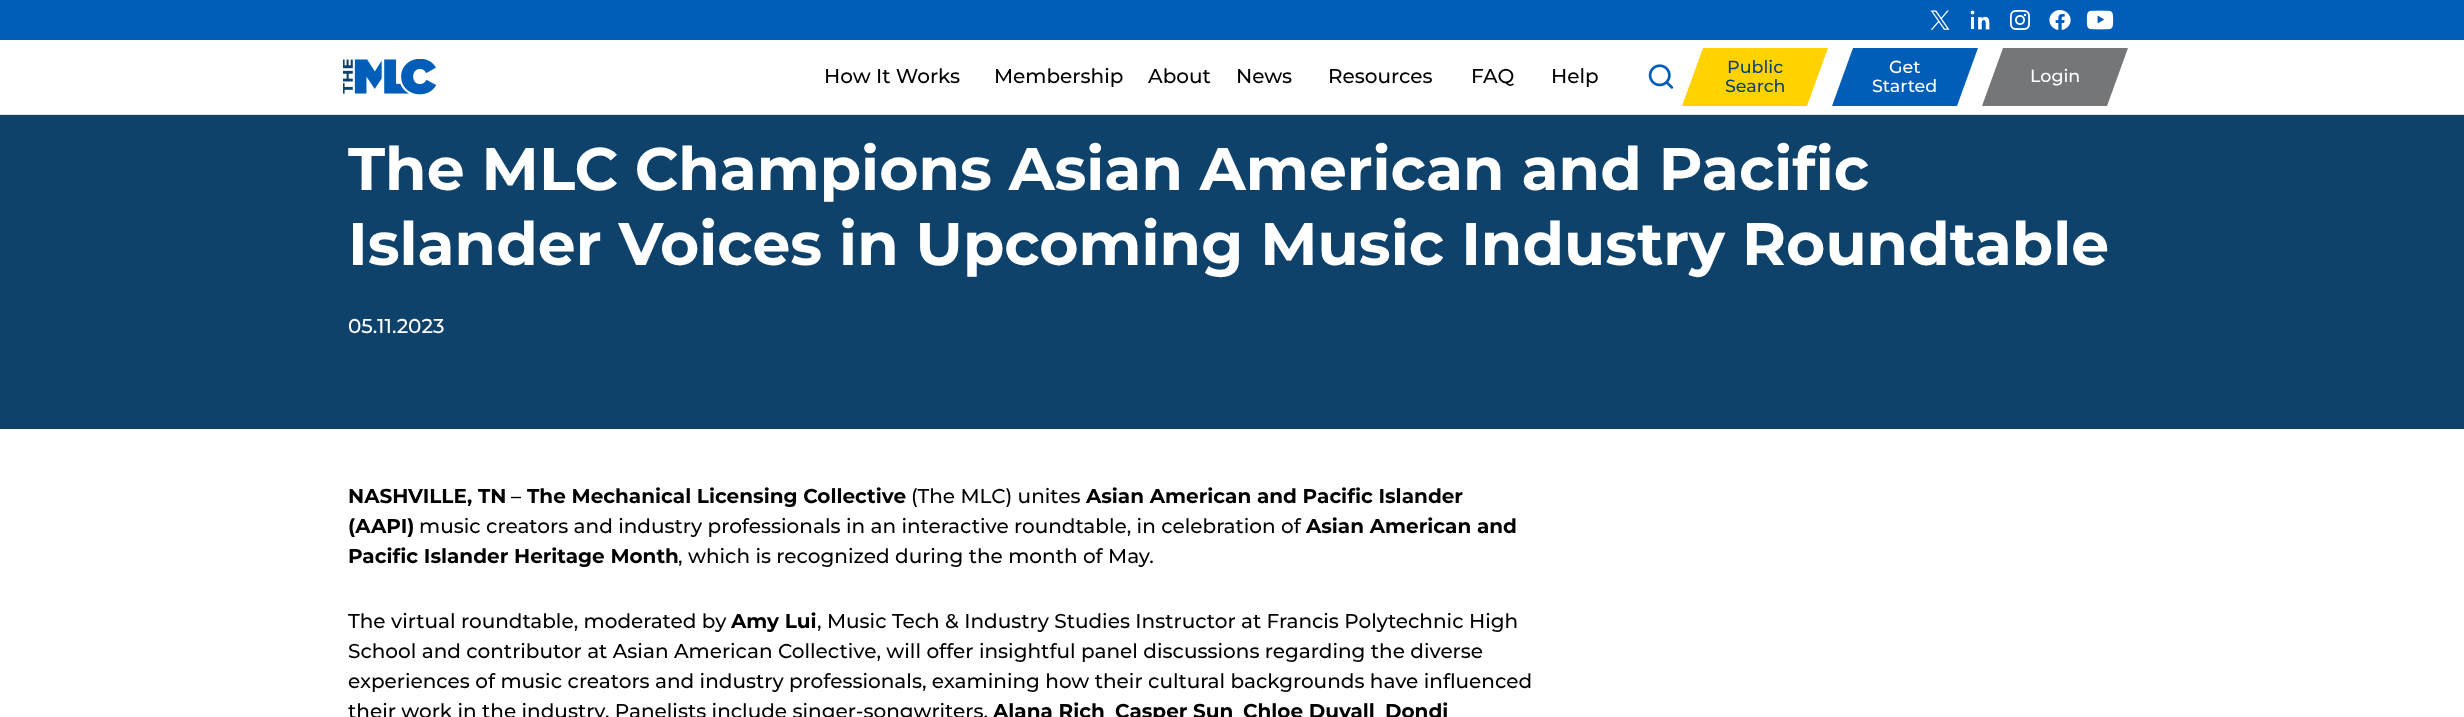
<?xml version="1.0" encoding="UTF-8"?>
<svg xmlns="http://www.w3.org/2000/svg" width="2464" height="717">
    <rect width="100%" height="100%" fill="#FFFFFF"/>
    <rect x="0" y="0" width="2464" height="40" fill="#005EB8"/>
    <image x="1930" y="10" width="20" height="20" href="img_01.png"/>
    <image x="1970" y="10" width="20" height="20" href="img_02.png"/>
    <image x="2010" y="10" width="20" height="20" href="img_03.png"/>
    <image x="2049" y="10" width="22" height="20" href="img_04.png"/>
    <image x="2086" y="10" width="28" height="20" href="img_05.png"/>
    <rect x="0" y="114" width="2464" height="1" fill="#E0E0E0"/>
    <image x="343" y="59" width="93" height="36" href="img_06.png"/>
    <text x="824" y="83" font-family="Montserrat" font-size="20" font-weight="500" fill="#000000">How It Works</text>
    <text x="994" y="83" font-family="Montserrat" font-size="20" font-weight="500" fill="#000000">Membership</text>
    <text x="1148" y="83" font-family="Montserrat" font-size="20" font-weight="500" fill="#000000">About</text>
    <text x="1236" y="83" font-family="Montserrat" font-size="20" font-weight="500" fill="#000000">News</text>
    <text x="1328" y="83" font-family="Montserrat" font-size="20" font-weight="500" fill="#000000">Resources</text>
    <text x="1471" y="83" font-family="Montserrat" font-size="20" font-weight="500" fill="#000000">FAQ</text>
    <text x="1551" y="83" font-family="Montserrat" font-size="20" font-weight="500" fill="#000000">Help</text>
    <image x="1648" y="64" width="26" height="25" href="img_07.png"/>
    <path d="M 1703 48 H 1828 L 1807 106 H 1682 Z" fill="#FFD200"/>
    <text x="1727" y="73" font-family="Montserrat" font-size="17.5" font-weight="500" fill="#0F426B">Public</text>
    <text x="1725" y="92" font-family="Montserrat" font-size="17.5" font-weight="500" fill="#0F426B">Search</text>
    <path d="M 1853 48 H 1978 L 1957 106 H 1832 Z" fill="#005EB8"/>
    <text x="1889" y="73" font-family="Montserrat" font-size="17.5" font-weight="500" fill="#FFFFFF">Get</text>
    <text x="1872" y="92" font-family="Montserrat" font-size="17.5" font-weight="500" fill="#FFFFFF">Started</text>
    <path d="M 2003 48 H 2128 L 2107 106 H 1982 Z" fill="#747678"/>
    <text x="2030" y="82" font-family="Montserrat" font-size="17.5" font-weight="500" fill="#FFFFFF">Login</text>
    <rect x="0" y="115" width="2464" height="314" fill="#0F426B"/>
    <text font-family="Montserrat" font-size="60" font-weight="700" fill="#FFFFFF">
        <tspan x="348" y="190">The MLC Champions Asian American and Pacific</tspan>
        <tspan x="348" y="265">Islander Voices in Upcoming Music Industry Roundtable</tspan>
    </text>
    <text x="348" y="333" font-family="Montserrat" font-size="20" font-weight="500" fill="#FFFFFF">05.11.2023</text>
    <text x="348" y="503" font-family="Montserrat" font-size="20" font-weight="700" fill="#000000">NASHVILLE, TN</text>
    <text x="511" y="503" font-family="Montserrat" font-size="20" font-weight="500" fill="#000000">–</text>
    <text x="527" y="503" font-family="Montserrat" font-size="20" font-weight="700" fill="#000000">The Mechanical Licensing Collective</text>
    <text x="911" y="503" font-family="Montserrat" font-size="20" font-weight="500" fill="#000000">(The MLC) unites</text>
    <text x="1086" y="503" font-family="Montserrat" font-size="20" font-weight="700" fill="#000000">Asian American and Pacific Islander</text>
    <text x="348" y="533" font-family="Montserrat" font-size="20" font-weight="700" fill="#000000">(AAPI)</text>
    <text x="419" y="533" font-family="Montserrat" font-size="20" font-weight="500" fill="#000000">music creators and industry professionals in an interactive roundtable, in celebration of</text>
    <text x="1306" y="533" font-family="Montserrat" font-size="20" font-weight="700" fill="#000000">Asian American and</text>
    <text x="348" y="563" font-family="Montserrat" font-size="20" font-weight="700" fill="#000000">Pacific Islander Heritage Month</text>
    <text x="678" y="563" font-family="Montserrat" font-size="20" font-weight="500" fill="#000000">, which is recognized during the month of May.</text>
    <text x="348" y="628" font-family="Montserrat" font-size="20" font-weight="500" fill="#000000">The virtual roundtable, moderated by</text>
    <text x="731" y="628" font-family="Montserrat" font-size="20" font-weight="700" fill="#000000">Amy Lui</text>
    <text x="817" y="628" font-family="Montserrat" font-size="20" font-weight="500" fill="#000000">, Music Tech &amp; Industry Studies Instructor at Francis Polytechnic High</text>
    <text font-family="Montserrat" font-size="20" font-weight="500" fill="#000000">
        <tspan x="348" y="658">School and contributor at Asian American Collective, will offer insightful panel discussions regarding the diverse</tspan>
        <tspan x="348" y="688">experiences of music creators and industry professionals, examining how their cultural backgrounds have influenced</tspan>
        <tspan x="348" y="718">their work in the industry. Panelists include singer-songwriters,</tspan>
    </text>
    <text x="993" y="718" font-family="Montserrat" font-size="20" font-weight="700" fill="#000000">Alana Rich</text>
    <text x="1115" y="718" font-family="Montserrat" font-size="20" font-weight="700" fill="#000000">Casper Sun</text>
    <text x="1243" y="718" font-family="Montserrat" font-size="20" font-weight="700" fill="#000000">Chloe Duvall</text>
    <text x="1385" y="718" font-family="Montserrat" font-size="20" font-weight="700" fill="#000000">Dondi</text>
</svg>
